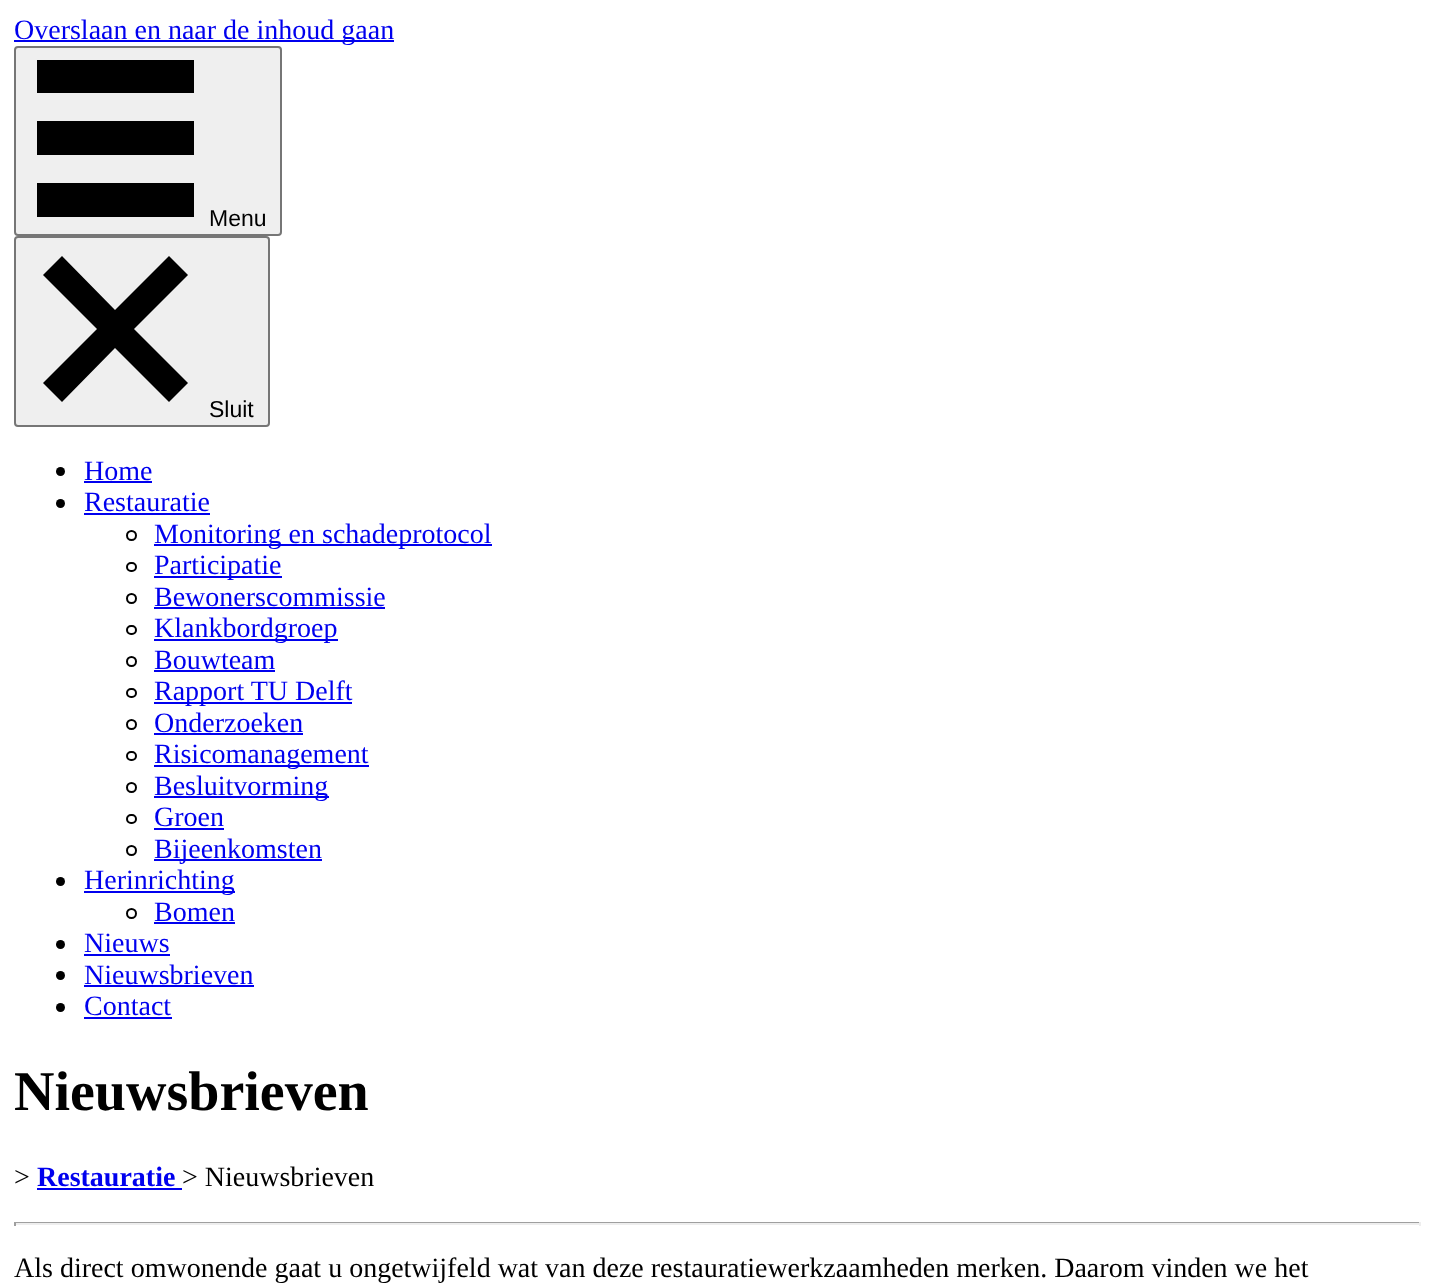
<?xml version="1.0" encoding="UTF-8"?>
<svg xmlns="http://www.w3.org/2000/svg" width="1435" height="1288">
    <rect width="100%" height="100%" fill="#FFFFFF"/>
    <rect x="14" y="40" width="380" height="2" fill="#0000EE"/>
    <text x="14" y="39" font-family="Liberation Serif" font-size="28" fill="#0000EE">Overslaan en naar de inhoud gaan</text>
    <rect x="15" y="47" width="266" height="188" rx="3" fill="#EFEFEF" stroke="#767676" stroke-width="2"/>
    <rect x="37" y="60" width="157" height="33" fill="#000000"/>
    <rect x="37" y="121" width="157" height="34" fill="#000000"/>
    <rect x="37" y="183" width="157" height="34" fill="#000000"/>
    <text x="209" y="226" font-family="Liberation Sans" font-size="23" fill="#000000">Menu</text>
    <rect x="15" y="237" width="254" height="189" rx="3" fill="#EFEFEF" stroke="#767676" stroke-width="2"/>
    <path d="M 188 275 L 169 256 L 115 310 L 62 256 L 43 275 L 97 329 L 43 383 L 62 402 L 115 348 L 169 402 L 188 383 L 134 329 Z" fill="#000000"/>
    <text x="209" y="417" font-family="Liberation Sans" font-size="23" fill="#000000">Sluit</text>
    <circle cx="60.5" cy="471.5" r="4.5" fill="#000000"/>
    <text x="84" y="480" font-family="Liberation Serif" font-size="28" fill="#0000EE">Home</text>
    <rect x="84" y="481" width="68" height="2" fill="#0000EE"/>
    <circle cx="60.5" cy="503.5" r="4.5" fill="#000000"/>
    <text x="84" y="511" font-family="Liberation Serif" font-size="28" fill="#0000EE">Restauratie</text>
    <rect x="84" y="513" width="126" height="2" fill="#0000EE"/>
    <circle cx="131.5" cy="535.5" r="4.5" fill="none" stroke="#000000" stroke-width="2"/>
    <rect x="154" y="544" width="338" height="2" fill="#0000EE"/>
    <text x="154" y="543" font-family="Liberation Serif" font-size="28" fill="#0000EE">Monitoring en schadeprotocol</text>
    <rect x="127" y="563" width="9" height="8" rx="4" fill="none" stroke="#000000" stroke-width="2"/>
    <rect x="154" y="576" width="128" height="2" fill="#0000EE"/>
    <text x="154" y="574" font-family="Liberation Serif" font-size="28" fill="#0000EE">Participatie</text>
    <circle cx="131.5" cy="598.5" r="4.5" fill="none" stroke="#000000" stroke-width="2"/>
    <text x="154" y="606" font-family="Liberation Serif" font-size="28" fill="#0000EE">Bewonerscommissie</text>
    <rect x="154" y="607" width="231" height="2" fill="#0000EE"/>
    <rect x="127" y="626" width="9" height="8" rx="4" fill="none" stroke="#000000" stroke-width="2"/>
    <rect x="154" y="639" width="184" height="2" fill="#0000EE"/>
    <text x="154" y="637" font-family="Liberation Serif" font-size="28" fill="#0000EE">Klankbordgroep</text>
    <circle cx="131.5" cy="661.5" r="4.5" fill="none" stroke="#000000" stroke-width="2"/>
    <text x="154" y="669" font-family="Liberation Serif" font-size="28" fill="#0000EE">Bouwteam</text>
    <rect x="154" y="670" width="121" height="2" fill="#0000EE"/>
    <rect x="127" y="689" width="9" height="8" rx="4" fill="none" stroke="#000000" stroke-width="2"/>
    <rect x="154" y="702" width="198" height="2" fill="#0000EE"/>
    <text x="154" y="700" font-family="Liberation Serif" font-size="28" fill="#0000EE">Rapport TU Delft</text>
    <circle cx="131.5" cy="724.5" r="4.5" fill="none" stroke="#000000" stroke-width="2"/>
    <text x="154" y="732" font-family="Liberation Serif" font-size="28" fill="#0000EE">Onderzoeken</text>
    <rect x="154" y="733" width="149" height="2" fill="#0000EE"/>
    <rect x="127" y="752" width="9" height="8" rx="4" fill="none" stroke="#000000" stroke-width="2"/>
    <rect x="154" y="765" width="215" height="2" fill="#0000EE"/>
    <text x="154" y="763" font-family="Liberation Serif" font-size="28" fill="#0000EE">Risicomanagement</text>
    <circle cx="131.5" cy="787.5" r="4.5" fill="none" stroke="#000000" stroke-width="2"/>
    <rect x="154" y="796" width="175" height="2" fill="#0000EE"/>
    <text x="154" y="795" font-family="Liberation Serif" font-size="28" fill="#0000EE">Besluitvorming</text>
    <rect x="127" y="815" width="9" height="8" rx="4" fill="none" stroke="#000000" stroke-width="2"/>
    <text x="154" y="826" font-family="Liberation Serif" font-size="28" fill="#0000EE">Groen</text>
    <rect x="154" y="828" width="70" height="2" fill="#0000EE"/>
    <circle cx="131.5" cy="850.5" r="4.5" fill="none" stroke="#000000" stroke-width="2"/>
    <rect x="154" y="859" width="168" height="2" fill="#0000EE"/>
    <text x="154" y="858" font-family="Liberation Serif" font-size="28" fill="#0000EE">Bijeenkomsten</text>
    <circle cx="60.5" cy="881.5" r="4.5" fill="#000000"/>
    <rect x="84" y="891" width="151" height="2" fill="#0000EE"/>
    <text x="84" y="889" font-family="Liberation Serif" font-size="28" fill="#0000EE">Herinrichting</text>
    <circle cx="131.5" cy="913.5" r="4.5" fill="none" stroke="#000000" stroke-width="2"/>
    <text x="154" y="921" font-family="Liberation Serif" font-size="28" fill="#0000EE">Bomen</text>
    <rect x="154" y="922" width="81" height="2" fill="#0000EE"/>
    <circle cx="60.5" cy="944.5" r="4.5" fill="#000000"/>
    <text x="84" y="952" font-family="Liberation Serif" font-size="28" fill="#0000EE">Nieuws</text>
    <rect x="84" y="954" width="86" height="2" fill="#0000EE"/>
    <circle cx="60.5" cy="975.5" r="4.5" fill="#000000"/>
    <text x="84" y="984" font-family="Liberation Serif" font-size="28" fill="#0000EE">Nieuwsbrieven</text>
    <rect x="84" y="985" width="170" height="2" fill="#0000EE"/>
    <circle cx="60.5" cy="1007.5" r="4.5" fill="#000000"/>
    <text x="84" y="1015" font-family="Liberation Serif" font-size="28" fill="#0000EE">Contact</text>
    <rect x="84" y="1017" width="88" height="2" fill="#0000EE"/>
    <text x="14" y="1110" font-family="Liberation Serif" font-size="56" font-weight="700" fill="#000000">Nieuwsbrieven</text>
    <text x="14" y="1186" font-family="Liberation Serif" font-size="28" fill="#000000">&gt;</text>
    <text x="37" y="1186" font-family="Liberation Serif" font-size="28" font-weight="700" fill="#0000EE">Restauratie</text>
    <rect x="37" y="1188" width="145" height="2" fill="#0000EE"/>
    <text x="182" y="1186" font-family="Liberation Serif" font-size="28" fill="#000000">&gt; Nieuwsbrieven</text>
    <rect x="14" y="1222" width="1407" height="1" fill="#9F9F9F"/>
    <rect x="1419" y="1222" width="2" height="4" fill="#EEEEEE"/>
    <rect x="14" y="1223" width="1407" height="2" fill="#EEEEEE"/>
    <rect x="14" y="1222" width="2" height="4" fill="#9F9F9F"/>
    <text x="14" y="1277" font-family="Liberation Serif" font-size="28" fill="#000000">Als direct omwonende gaat u ongetwijfeld wat van deze restauratiewerkzaamheden merken. Daarom vinden we het</text>
</svg>
